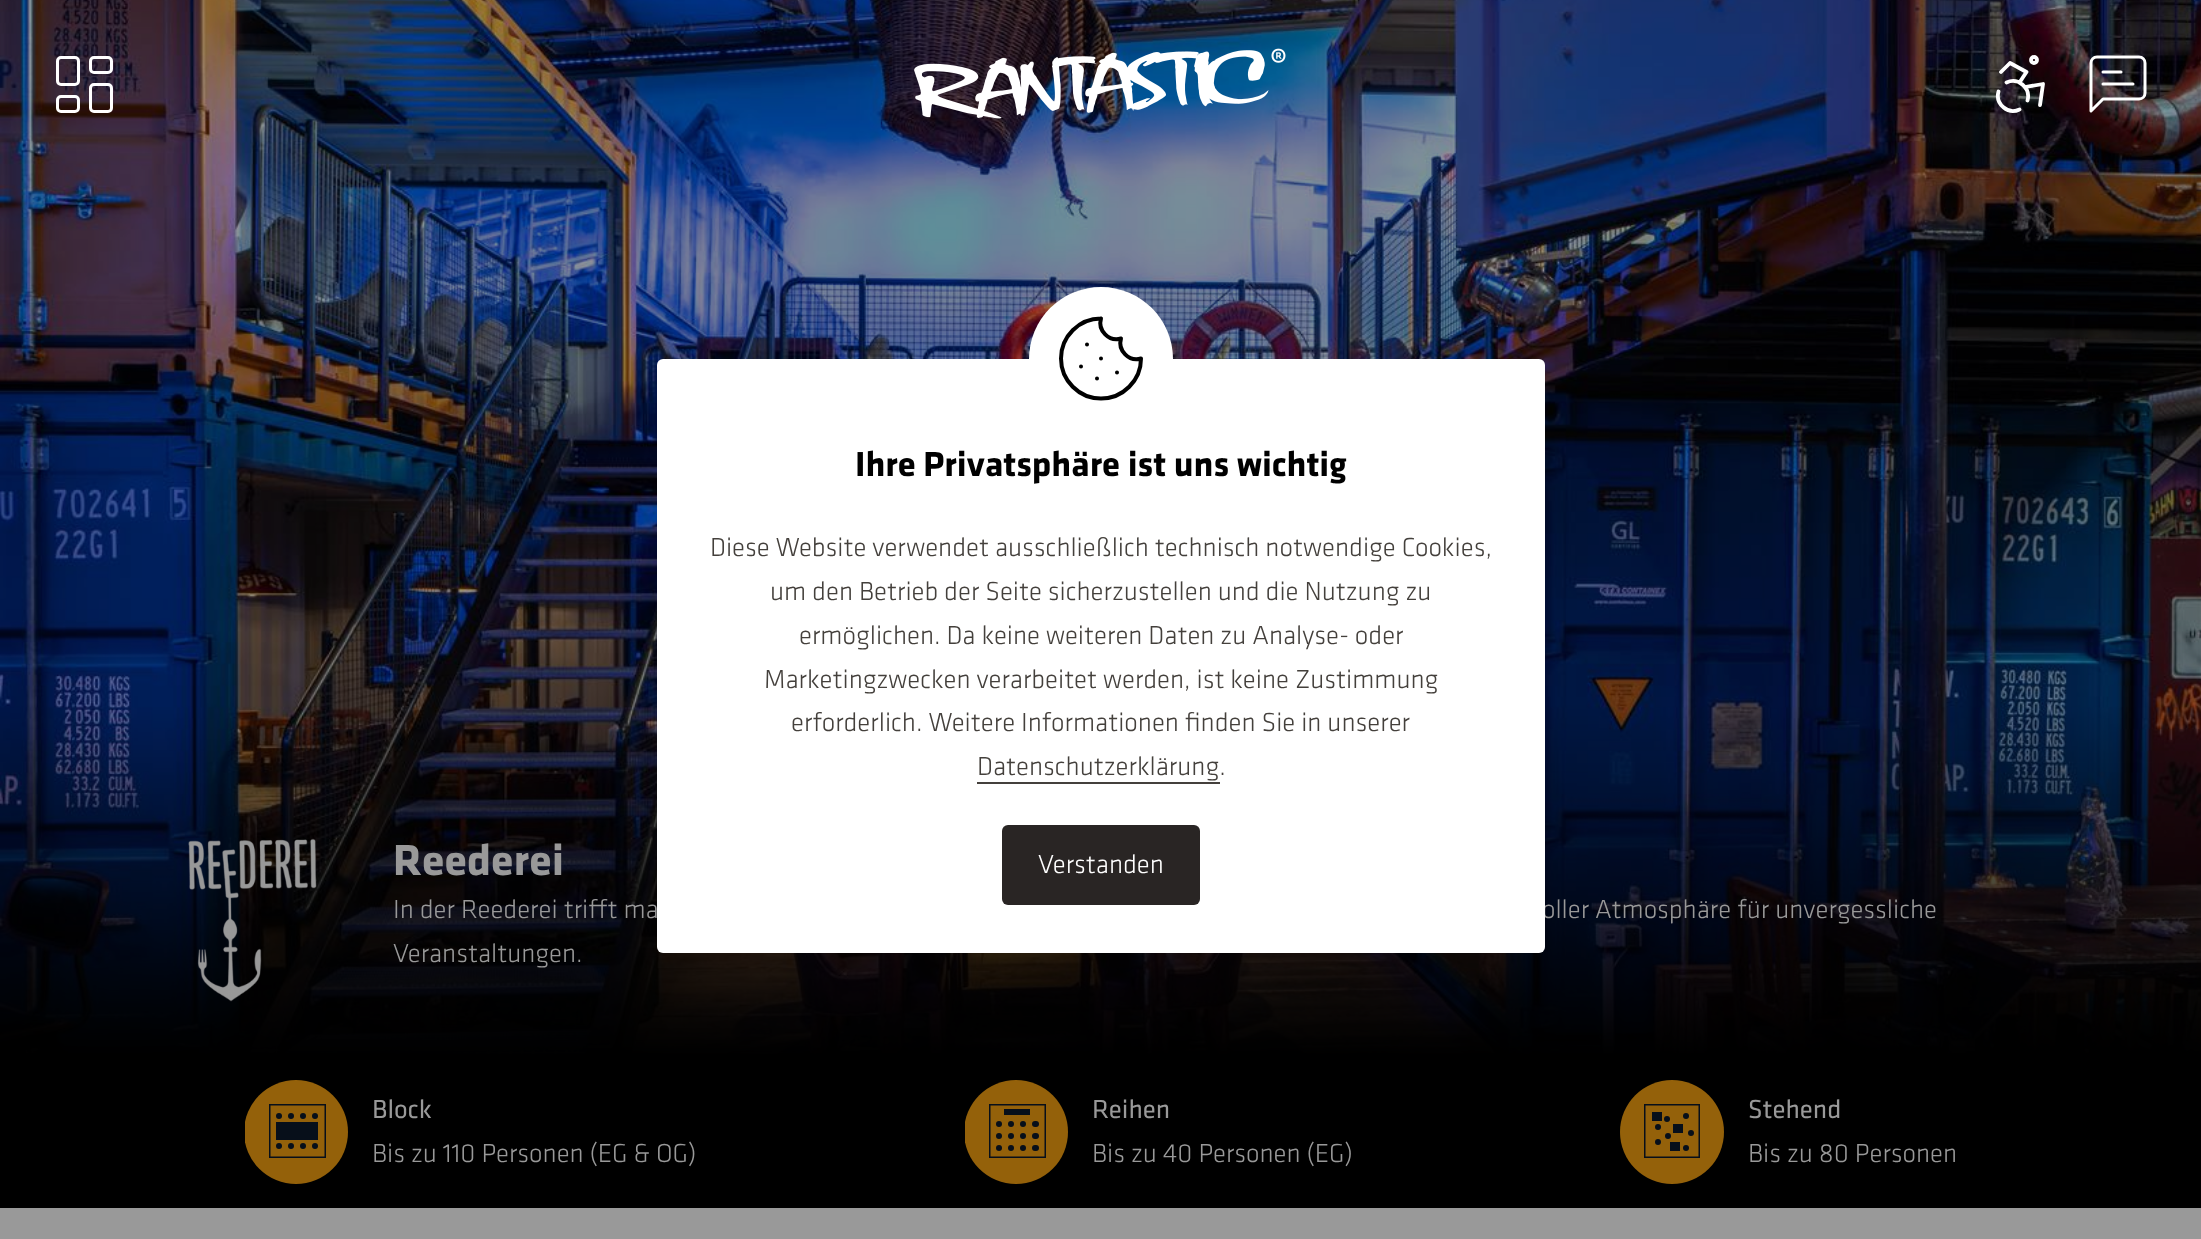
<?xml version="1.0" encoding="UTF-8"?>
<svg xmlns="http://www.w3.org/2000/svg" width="2201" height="1239">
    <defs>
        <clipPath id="clip1"><rect x="245" y="1080" width="103" height="104"/></clipPath>
        <clipPath id="clip2"><rect x="965" y="1080" width="103" height="104"/></clipPath>
    </defs>
    <rect width="100%" height="100%" fill="#999999"/>
    <image x="0" y="0" width="2201" height="1056" href="img_02.png"/>
    <rect x="57.5" y="57.5" width="21" height="27" rx="3.5" fill="none" stroke="#FFFFFF" stroke-width="3"/>
    <rect x="90.5" y="57.5" width="21" height="15" rx="3.5" fill="none" stroke="#FFFFFF" stroke-width="3"/>
    <rect x="90.5" y="84.5" width="21" height="27" rx="3.5" fill="none" stroke="#FFFFFF" stroke-width="3"/>
    <rect x="57.5" y="96.5" width="21" height="15" rx="3.5" fill="none" stroke="#FFFFFF" stroke-width="3"/>
    <image x="914" y="48" width="372" height="71" href="img_01.png"/>
    <circle cx="2034" cy="60" r="3" fill="none" stroke="#FFFFFF" stroke-width="3.8"/>
    <path d="M 2040 105 L 2043 84 L 2025 87 M 2001 72 L 2010 63 L 2026.5 72 L 2019.5 82.5 M 1998.5 91.5 C 1995 104 2008 115 2019.5 109.5 M 2027.5 100.5 C 2031 88 2018 77 2006.5 82.5" fill="none" stroke="#FFFFFF" stroke-width="3.8" stroke-linecap="round" stroke-linejoin="round"/>
    <path d="M 2145 93 C 2145 96.5 2142.5 99 2139 99 H 2103 L 2091 111 V 63 C 2091 59.5 2093.5 57 2097 57 H 2139 C 2142.5 57 2145 59.5 2145 63 Z M 2121 72 H 2103 M 2133 84 H 2103" fill="none" stroke="#FFFFFF" stroke-width="3" stroke-linecap="round" stroke-linejoin="round"/>
    <text x="1542" y="918" font-family="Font" font-size="27" font-weight="300" fill="#999999">oller Atmosphäre für unvergessliche</text>
    <rect x="657" y="359" width="888" height="594" rx="6" fill="#FFFFFF"/>
    <circle cx="1101" cy="359" r="72" fill="#FFFFFF"/>
    <path d="M 1101 318.5 C 1079 318.5 1061 336.5 1061 358.5 C 1061 380.5 1079 398.5 1101 398.5 C 1123 398.5 1141 380.5 1141 358.5 C 1129 362 1117.5 350.5 1121 338.5 C 1109 342 1097.5 330.5 1101 318.5" fill="none" stroke="#000000" stroke-width="4" stroke-linecap="round" stroke-linejoin="round"/>
    <path d="M 1087 344.5 H 1087 M 1117 372.5 H 1117 M 1101 358.5 H 1101 M 1097 378.5 H 1097 M 1081 366.5 H 1081" fill="none" stroke="#000000" stroke-width="4" stroke-linecap="round" stroke-linejoin="round"/>
    <text x="855" y="476" font-family="Font" font-size="36" font-weight="700" fill="#000000">Ihre Privatsphäre ist uns wichtig</text>
    <text x="710" y="556" font-family="Font" font-size="27" font-weight="300" fill="#44403C">Diese Website verwendet ausschließlich technisch notwendige Cookies,</text>
    <text x="770" y="600" font-family="Font" font-size="27" font-weight="300" fill="#44403C">um den Betrieb der Seite sicherzustellen und die Nutzung zu</text>
    <text x="799" y="644" font-family="Font" font-size="27" font-weight="300" fill="#44403C">ermöglichen. Da keine weiteren Daten zu Analyse- oder</text>
    <text x="764" y="688" font-family="Font" font-size="27" font-weight="300" fill="#44403C">Marketingzwecken verarbeitet werden, ist keine Zustimmung</text>
    <text x="791" y="731" font-family="Font" font-size="27" font-weight="300" fill="#44403C">erforderlich. Weitere Informationen finden Sie in unserer</text>
    <text x="977" y="775" font-family="Font" font-size="27" font-weight="300" fill="#44403C">Datenschutzerklärung.</text>
    <rect x="977" y="782" width="243" height="2" fill="#44403C"/>
    <rect x="1002" y="825" width="198" height="80" rx="6" fill="#292524"/>
    <text x="1038" y="873" font-family="Font" font-size="27" font-weight="300" fill="#FFFFFF">Verstanden</text>
    <image x="188" y="838" width="129" height="164" href="img_03.png"/>
    <text x="393" y="875" font-family="Font" font-size="45" font-weight="700" fill="#999999">Reederei</text>
    <text font-family="Font" font-size="27" font-weight="300" fill="#999999">
        <tspan x="393" y="918">In der Reederei trifft ma</tspan>
        <tspan x="393" y="962">Veranstaltungen.</tspan>
    </text>
    <rect x="0" y="1056" width="2201" height="152" fill="#000000"/>
    <g clip-path="url(#clip1)">
        <circle cx="296" cy="1132" r="52" fill="#94610A"/>
    </g>
    <rect x="269.75" y="1104.75" width="55.5" height="52.5" fill="none" stroke="#070F1A" stroke-width="1.5"/>
    <circle cx="279" cy="1116" r="3" fill="#070F1A"/>
    <circle cx="279" cy="1146" r="3" fill="#070F1A"/>
    <rect x="276" y="1122" width="42" height="18" fill="#070F1A"/>
    <circle cx="291" cy="1116" r="3" fill="#070F1A"/>
    <circle cx="291" cy="1146" r="3" fill="#070F1A"/>
    <circle cx="303" cy="1116" r="3" fill="#070F1A"/>
    <circle cx="303" cy="1146" r="3" fill="#070F1A"/>
    <circle cx="315" cy="1116" r="3" fill="#070F1A"/>
    <circle cx="315" cy="1146" r="3" fill="#070F1A"/>
    <text x="372" y="1118" font-family="Font" font-size="27" fill="#999999">Block</text>
    <text x="372" y="1162" font-family="Font" font-size="27" font-weight="300" fill="#999999">Bis zu 110 Personen (EG &amp; OG)</text>
    <g clip-path="url(#clip2)">
        <circle cx="1016" cy="1132" r="52" fill="#94610A"/>
    </g>
    <rect x="989.75" y="1104.75" width="55.5" height="52.5" fill="none" stroke="#070F1A" stroke-width="1.5"/>
    <rect x="1004" y="1109" width="26" height="6" fill="#070F1A"/>
    <circle cx="999" cy="1124" r="3" fill="#070F1A"/>
    <circle cx="999" cy="1136" r="3" fill="#070F1A"/>
    <circle cx="999" cy="1148" r="3" fill="#070F1A"/>
    <circle cx="1011" cy="1124" r="3" fill="#070F1A"/>
    <circle cx="1011" cy="1136" r="3" fill="#070F1A"/>
    <circle cx="1011" cy="1148" r="3" fill="#070F1A"/>
    <circle cx="1023" cy="1124" r="3" fill="#070F1A"/>
    <circle cx="1023" cy="1136" r="3" fill="#070F1A"/>
    <circle cx="1023" cy="1148" r="3" fill="#070F1A"/>
    <rect x="1032" y="1121" width="7" height="6" rx="3" fill="#070F1A"/>
    <rect x="1032" y="1133" width="7" height="6" rx="3" fill="#070F1A"/>
    <rect x="1032" y="1145" width="7" height="6" rx="3" fill="#070F1A"/>
    <text x="1092" y="1118" font-family="Font" font-size="27" fill="#999999">Reihen</text>
    <text x="1092" y="1162" font-family="Font" font-size="27" font-weight="300" fill="#999999">Bis zu 40 Personen (EG)</text>
    <circle cx="1672" cy="1132" r="52" fill="#94610A"/>
    <rect x="1644.75" y="1104.75" width="54.5" height="52.5" fill="none" stroke="#070F1A" stroke-width="1.5"/>
    <rect x="1652" y="1112" width="10" height="9" fill="#070F1A"/>
    <rect x="1673" y="1124" width="10" height="9" fill="#070F1A"/>
    <rect x="1670" y="1142" width="10" height="9" fill="#070F1A"/>
    <circle cx="1658" cy="1142" r="3" fill="#070F1A"/>
    <circle cx="1668" cy="1136" r="3" fill="#070F1A"/>
    <circle cx="1658" cy="1127" r="3" fill="#070F1A"/>
    <circle cx="1667" cy="1119" r="3" fill="#070F1A"/>
    <circle cx="1686" cy="1116" r="3" fill="#070F1A"/>
    <circle cx="1691" cy="1133" r="3" fill="#070F1A"/>
    <circle cx="1686" cy="1148" r="3" fill="#070F1A"/>
    <text x="1748" y="1118" font-family="Font" font-size="27" fill="#999999">Stehend</text>
    <text x="1748" y="1162" font-family="Font" font-size="27" font-weight="300" fill="#999999">Bis zu 80 Personen</text>
</svg>
